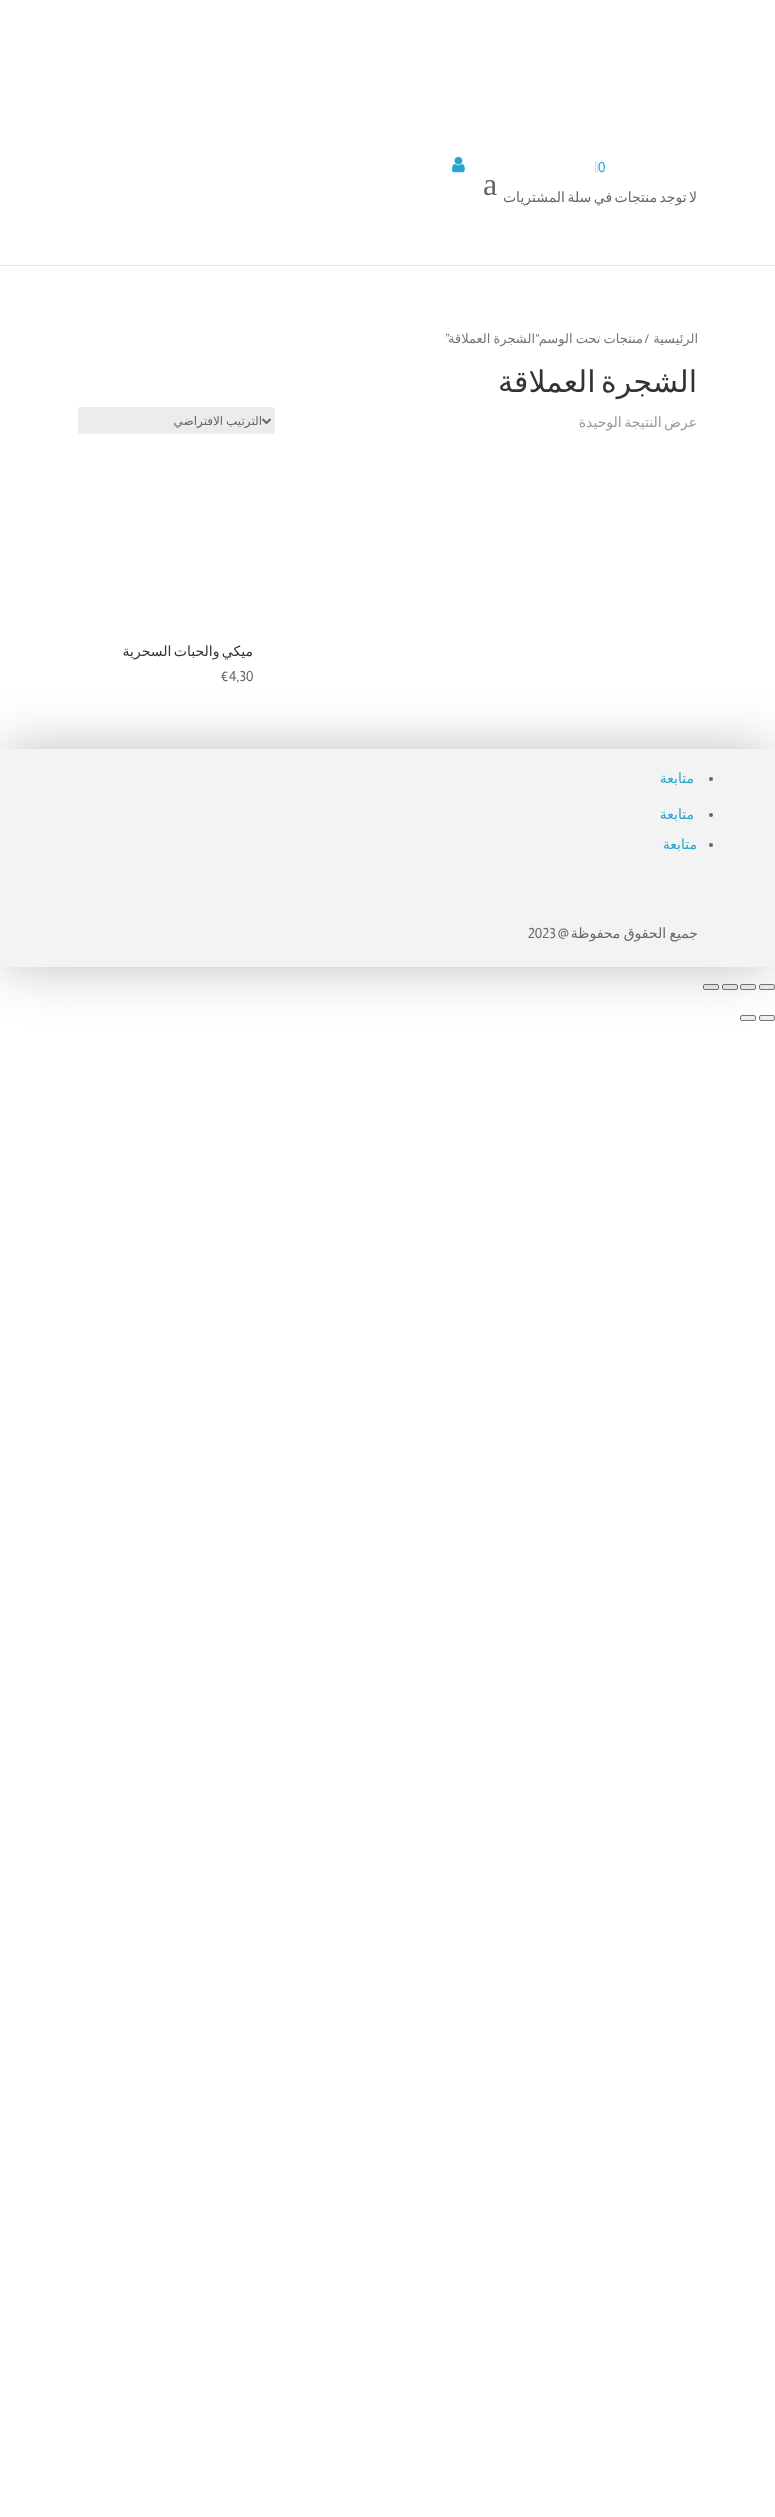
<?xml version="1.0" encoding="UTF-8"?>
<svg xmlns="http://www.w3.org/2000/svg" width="775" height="2517">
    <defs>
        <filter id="blur1" x="-50%" y="-200%" width="200%" height="500%"><feGaussianBlur stdDeviation="30"/></filter>
    </defs>
    <rect width="100%" height="100%" fill="#FFFFFF"/>
    <rect x="0" y="265" width="775" height="1" fill="#E5E5E5"/>
    <text x="598" y="172" font-family="Almarai" font-size="14" fill="#25A5D0">0</text>
    <image x="595" y="161" width="3" height="11" href="img_01.png"/>
    <text x="697" y="202" word-spacing="-2" font-family="DejaVu Sans" font-size="14" direction="rtl" fill="#666666">لا توجد منتجات في سلة المشتريات</text>
    <text x="483" y="195" font-family="Liberation Serif" font-size="32" fill="#666666">a</text>
    <image x="452" y="156" width="13" height="17" href="img_02.png"/>
    <text x="698" y="343" font-family="DejaVu Sans" font-size="13" direction="rtl" fill="#767676">الرئيسية</text>
    <text x="649" y="343" font-family="Almarai" font-size="13" direction="rtl" fill="#767676">/</text>
    <text x="643" y="343" word-spacing="-1" font-family="DejaVu Sans" font-size="13" direction="rtl" fill="#767676">منتجات تحت الوسم</text>
    <text x="540" y="343" font-family="Almarai" font-size="13" direction="rtl" fill="#767676">“</text>
    <text x="535" y="343" word-spacing="-1" font-family="DejaVu Sans" font-size="13" direction="rtl" fill="#767676">الشجرة العملاقة</text>
    <text x="450" y="343" font-family="Almarai" font-size="13" direction="rtl" fill="#767676">”</text>
    <text x="697" y="392" word-spacing="-4" font-family="DejaVu Sans" font-size="30" direction="rtl" fill="#333333">الشجرة العملاقة</text>
    <text x="697" y="427" word-spacing="-2" font-family="DejaVu Sans" font-size="14" direction="rtl" fill="#999999">عرض النتيجة الوحيدة</text>
    <rect x="78" y="407" width="197" height="27" rx="3" fill="#ECECEC"/>
    <path d="M 262.5 419 L 266.5 423 L 270.5 419" fill="none" stroke="#666666" stroke-width="2"/>
    <text x="262" y="425" word-spacing="-1" font-family="DejaVu Sans" font-size="12" direction="rtl" fill="#666666">الترتيب الافتراضي</text>
    <text x="253" y="656" word-spacing="-2" font-family="DejaVu Sans" font-size="14" direction="rtl" fill="#333333">ميكي والحبات السحرية</text>
    <text x="220" y="681" font-family="Almarai" font-size="14" fill="#666666">€4,30</text>
    <rect x="759.5" y="984.5" width="15" height="5" rx="1.5" fill="#EFEFEF" stroke="#767676"/>
    <rect x="740.5" y="984.5" width="15" height="5" rx="1.5" fill="#EFEFEF" stroke="#767676"/>
    <rect x="722.5" y="984.5" width="15" height="5" rx="1.5" fill="#EFEFEF" stroke="#767676"/>
    <rect x="703.5" y="984.5" width="15" height="5" rx="1.5" fill="#EFEFEF" stroke="#767676"/>
    <rect x="759.5" y="1015.5" width="15" height="5" rx="1.5" fill="#EFEFEF" stroke="#767676"/>
    <rect x="740.5" y="1015.5" width="15" height="5" rx="1.5" fill="#EFEFEF" stroke="#767676"/>
    <rect x="5" y="754" width="765" height="208" fill="#000000" fill-opacity="0.3" filter="url(#blur1)"/>
    <rect x="0" y="749" width="775" height="218" fill="#F3F3F3"/>
    <circle cx="711" cy="779" r="2" fill="#666666"/>
    <text x="694" y="783" font-family="DejaVu Sans" font-size="14" direction="rtl" fill="#25A5D0">متابعة</text>
    <circle cx="711" cy="815" r="2" fill="#666666"/>
    <text x="694" y="819" font-family="DejaVu Sans" font-size="14" direction="rtl" fill="#25A5D0">متابعة</text>
    <circle cx="711" cy="845" r="2" fill="#666666"/>
    <text x="697" y="849" font-family="DejaVu Sans" font-size="14" direction="rtl" fill="#25A5D0">متابعة</text>
    <text x="698" y="938" word-spacing="-1" font-family="DejaVu Sans" font-size="14" direction="rtl" fill="#666666">جميع الحقوق محفوظة</text>
    <text x="569" y="938" font-family="Almarai" font-size="14" direction="rtl" fill="#666666">@</text>
    <text x="528" y="938" font-family="Almarai" font-size="14" fill="#666666">2023</text>
</svg>
